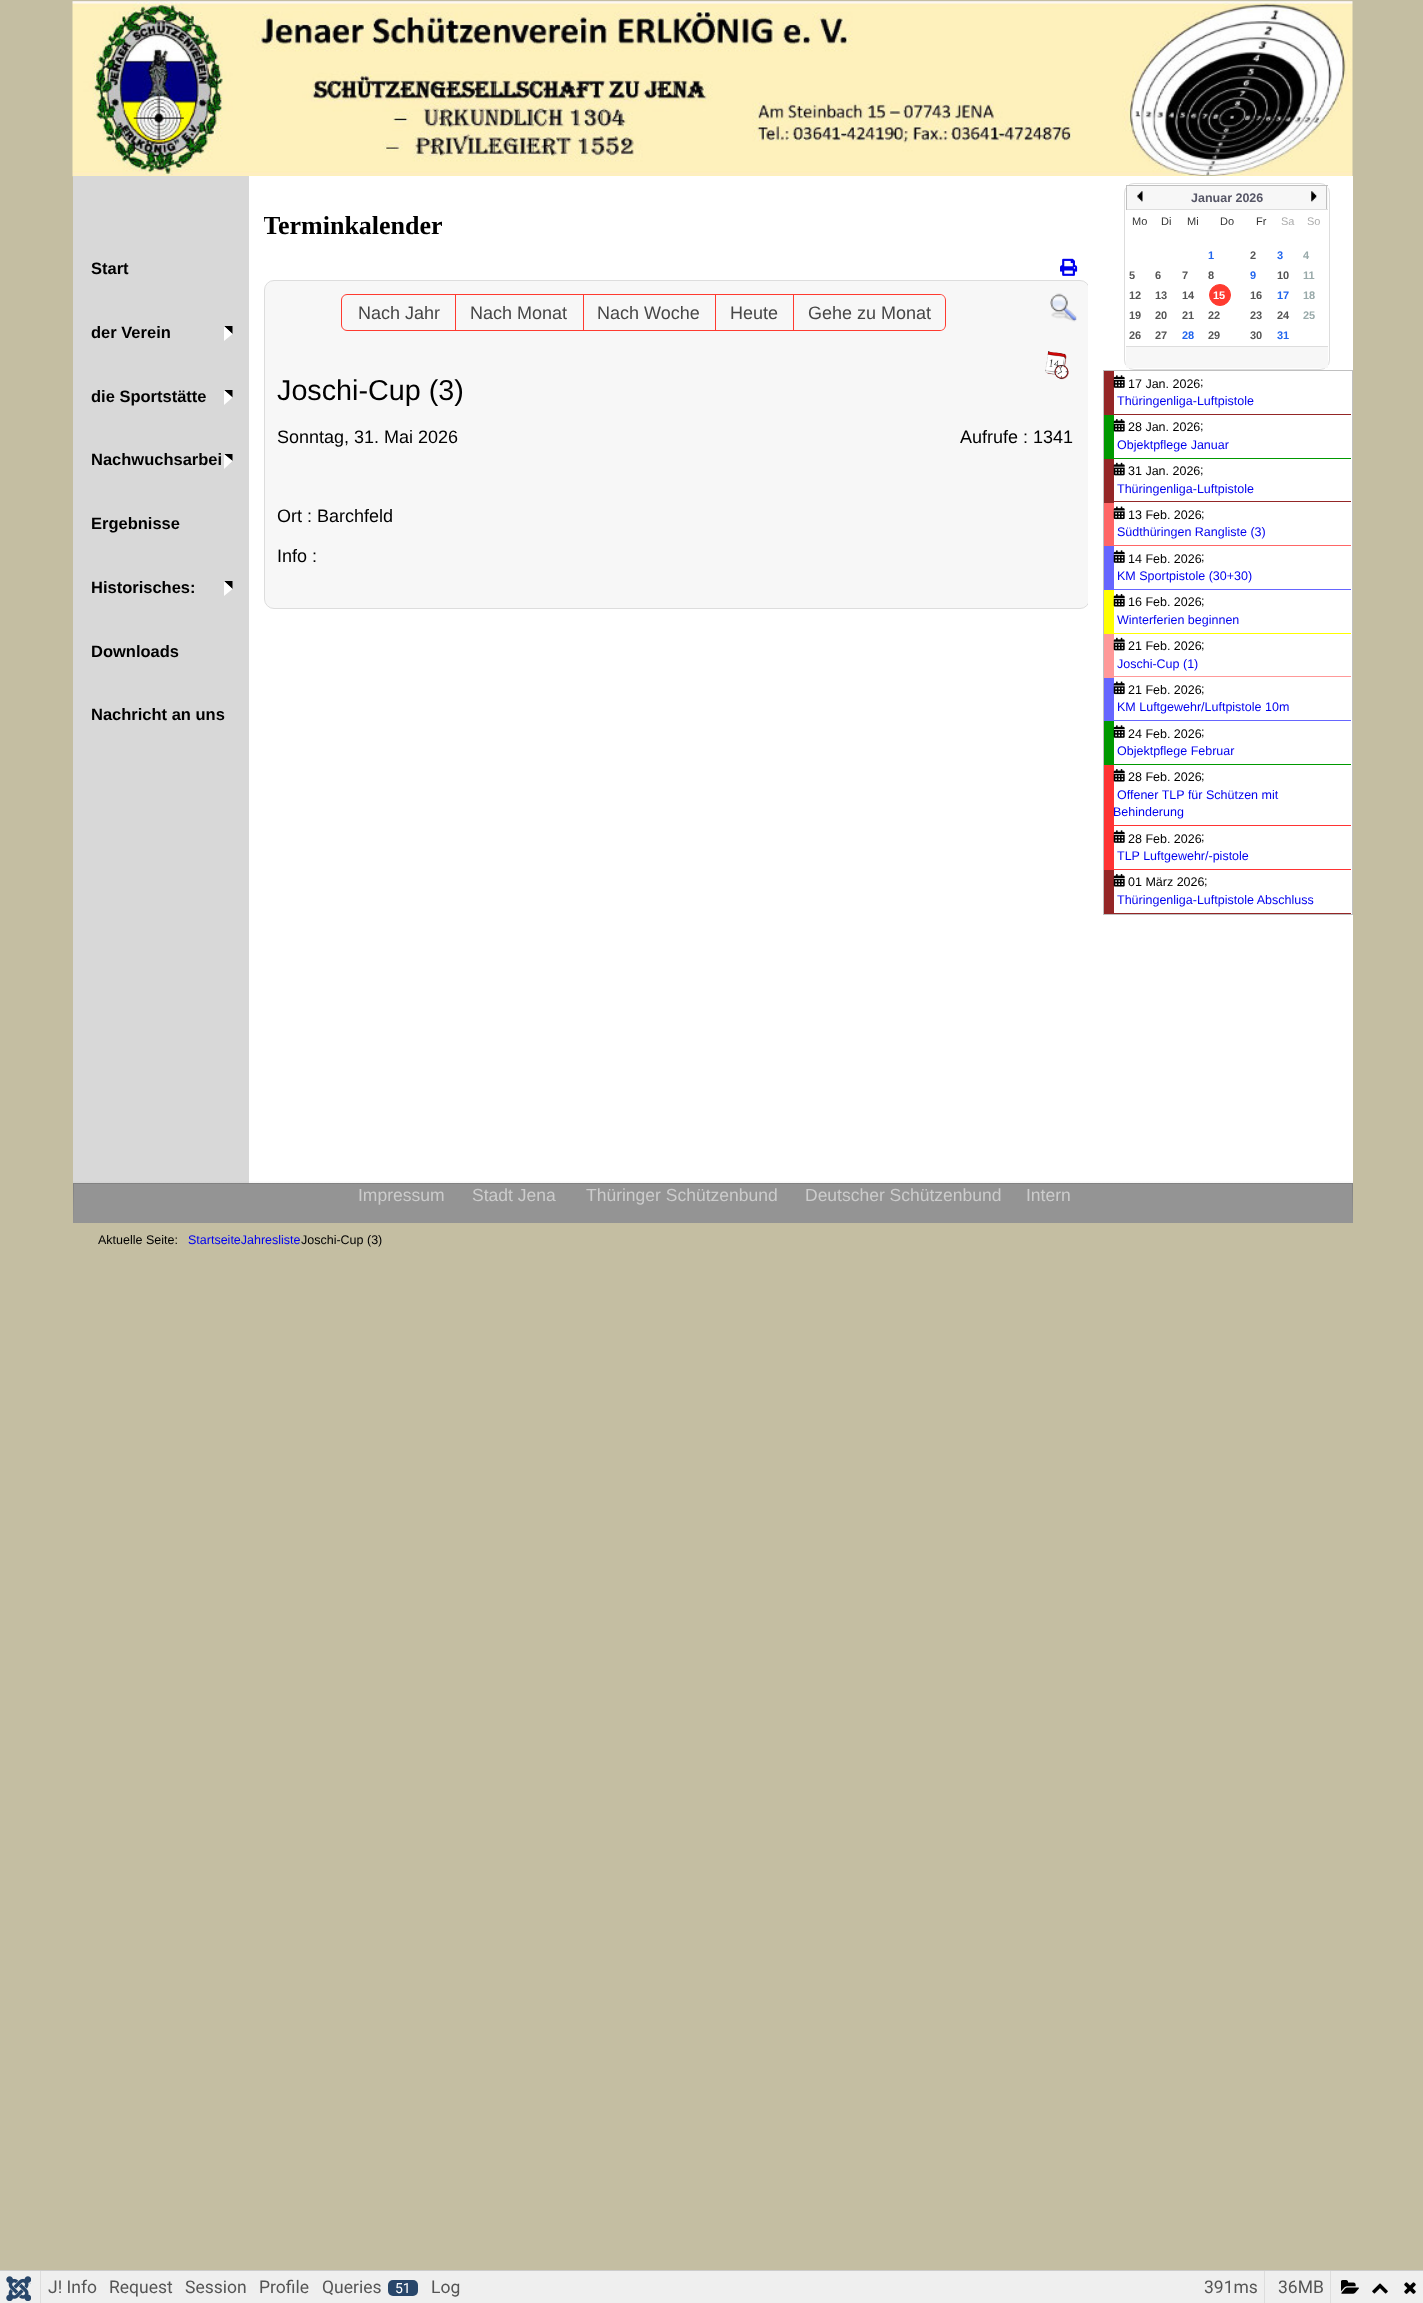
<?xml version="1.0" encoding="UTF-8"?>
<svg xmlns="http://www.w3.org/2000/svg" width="1423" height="2303">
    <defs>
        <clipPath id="clip1"><rect x="264" y="191" width="824" height="977"/></clipPath>
        <linearGradient id="g1" gradientUnits="userSpaceOnUse" x1="713" y1="1180" x2="713" y2="1223"><stop offset="0" stop-color="#949494" stop-opacity="0"/><stop offset="1" stop-color="#949494"/></linearGradient>
    </defs>
    <rect width="100%" height="100%" fill="#C4BEA2"/>
    <image x="72" y="1" width="1281" height="176" href="img_01.png"/>
    <rect x="73" y="176" width="176" height="1007" fill="#D8D8D8"/>
    <text x="91" y="274" font-family="Liberation Sans" font-size="16.5" font-weight="700" fill="#000000">Start</text>
    <text x="91" y="338" font-family="Liberation Sans" font-size="16.5" font-weight="700" fill="#000000">der Verein</text>
    <path d="M 224 326 H 232.5 V 334 Z" fill="#000000"/>
    <path d="M 224 341 V 326 L 232.5 334 Z" fill="#FFFFFF"/>
    <text x="91" y="402" font-family="Liberation Sans" font-size="16.5" font-weight="700" fill="#000000">die Sportstätte</text>
    <path d="M 224 390 H 232.5 V 397.5 Z" fill="#000000"/>
    <path d="M 224 405 V 390 L 232.5 397.5 Z" fill="#FFFFFF"/>
    <text x="91" y="465" font-family="Liberation Sans" font-size="16.5" font-weight="700" fill="#000000">Nachwuchsarbei</text>
    <path d="M 224 454 H 232.5 V 461 Z" fill="#000000"/>
    <path d="M 224 469 V 454 L 232.5 461 Z" fill="#FFFFFF"/>
    <text x="91" y="529" font-family="Liberation Sans" font-size="16.5" font-weight="700" fill="#000000">Ergebnisse</text>
    <text x="91" y="593" font-family="Liberation Sans" font-size="16.5" font-weight="700" fill="#000000">Historisches:</text>
    <path d="M 224 581 H 232.5 V 589 Z" fill="#000000"/>
    <path d="M 224 596 V 581 L 232.5 589 Z" fill="#FFFFFF"/>
    <text x="91" y="657" font-family="Liberation Sans" font-size="16.5" font-weight="700" fill="#000000">Downloads</text>
    <text x="91" y="720" font-family="Liberation Sans" font-size="16.5" font-weight="700" fill="#000000">Nachricht an uns</text>
    <rect x="249" y="176" width="1104" height="1007" fill="#FFFFFF"/>
    <g clip-path="url(#clip1)">
        <text x="263" y="234" font-family="Liberation Serif" font-size="26" font-weight="700" fill="#000000">Terminkalender</text>
    </g>
    <image x="1060" y="258" width="18" height="18" href="img_02.png"/>
    <g clip-path="url(#clip1)">
        <rect x="264.5" y="280.5" width="825" height="328" rx="9.5" fill="#F7F7F7" stroke="#DDDDDD"/>
    </g>
    <path d="M 347 294.5 H 455.5 V 330.5 H 347 C 344 330.5 341.5 328 341.5 325 V 300 C 341.5 297 344 294.5 347 294.5 Z" fill="none" stroke="#FF3B30"/>
    <text x="358" y="319" font-family="Liberation Sans" font-size="18" fill="#474747">Nach Jahr</text>
    <rect x="455" y="294" width="129" height="1" fill="#FF3B30"/>
    <rect x="583" y="294" width="1" height="37" fill="#FF3B30"/>
    <rect x="455" y="330" width="129" height="1" fill="#FF3B30"/>
    <text x="470" y="319" font-family="Liberation Sans" font-size="18" fill="#474747">Nach Monat</text>
    <rect x="583" y="294" width="133" height="1" fill="#FF3B30"/>
    <rect x="715" y="294" width="1" height="37" fill="#FF3B30"/>
    <rect x="583" y="330" width="133" height="1" fill="#FF3B30"/>
    <text x="597" y="319" font-family="Liberation Sans" font-size="18" fill="#474747">Nach Woche</text>
    <rect x="715" y="294" width="79" height="1" fill="#FF3B30"/>
    <rect x="793" y="294" width="1" height="37" fill="#FF3B30"/>
    <rect x="715" y="330" width="79" height="1" fill="#FF3B30"/>
    <text x="730" y="319" font-family="Liberation Sans" font-size="18" fill="#474747">Heute</text>
    <path d="M 792 294 H 940 C 943 294 946 297 946 300 V 325 C 946 328 943 331 940 331 H 792 Z M 792 295 H 940 C 943 295 945 297 945 300 V 325 C 945 328 943 330 940 330 H 792 Z" fill="#FF3B30" fill-rule="evenodd"/>
    <text x="808" y="319" font-family="Liberation Sans" font-size="18" fill="#474747">Gehe zu Monat</text>
    <image x="1050" y="293" width="27" height="29" href="img_03.png"/>
    <image x="1045" y="351" width="24" height="29" href="img_04.png"/>
    <text x="277" y="400" font-family="Liberation Sans" font-size="28.75" fill="#000000">Joschi-Cup (3)</text>
    <text x="277" y="443" font-family="Liberation Sans" font-size="18" fill="#000000">Sonntag, 31. Mai 2026</text>
    <text x="960" y="443" font-family="Liberation Sans" font-size="18" fill="#000000">Aufrufe : 1341</text>
    <text x="277" y="522" font-family="Liberation Sans" font-size="18" fill="#000000">Ort : Barchfeld</text>
    <text x="277" y="562" font-family="Liberation Sans" font-size="18" fill="#000000">Info :</text>
    <rect x="1124.5" y="183.5" width="205" height="186" rx="9.5" fill="none" stroke="#DDDDDD"/>
    <rect x="1127" y="186" width="201" height="23" fill="#F7F7F7"/>
    <rect x="1126" y="185" width="202" height="1" fill="#C0C0C0"/>
    <rect x="1326" y="185" width="1" height="25" fill="#C0C0C0"/>
    <rect x="1126" y="209" width="202" height="1" fill="#DDDDDD"/>
    <rect x="1126" y="185" width="1" height="25" fill="#C0C0C0"/>
    <image x="1137" y="191" width="6" height="11" href="img_05.png"/>
    <text x="1191" y="202" font-family="Liberation Sans" font-size="12.5" font-weight="700" fill="#565666">Januar 2026</text>
    <image x="1311" y="191" width="6" height="11" href="img_06.png"/>
    <text x="1132" y="225" font-family="Liberation Sans" font-size="11" fill="#333333">Mo</text>
    <text x="1161" y="225" font-family="Liberation Sans" font-size="11" fill="#333333">Di</text>
    <text x="1187" y="225" font-family="Liberation Sans" font-size="11" fill="#333333">Mi</text>
    <text x="1220" y="225" font-family="Liberation Sans" font-size="11" fill="#333333">Do</text>
    <text x="1256" y="225" font-family="Liberation Sans" font-size="11" fill="#333333">Fr</text>
    <text x="1281" y="225" font-family="Liberation Sans" font-size="11" fill="#ADADAD">Sa</text>
    <text x="1307" y="225" font-family="Liberation Sans" font-size="11" fill="#ADADAD">So</text>
    <text x="1208" y="259" font-family="Liberation Sans" font-size="11" font-weight="700" fill="#2266EE">1</text>
    <text x="1250" y="259" font-family="Liberation Sans" font-size="11" font-weight="700" fill="#555555">2</text>
    <text x="1277" y="259" font-family="Liberation Sans" font-size="11" font-weight="700" fill="#2266EE">3</text>
    <text x="1303" y="259" font-family="Liberation Sans" font-size="11" font-weight="700" fill="#99AAAA">4</text>
    <text x="1129" y="279" font-family="Liberation Sans" font-size="11" font-weight="700" fill="#555555">5</text>
    <text x="1155" y="279" font-family="Liberation Sans" font-size="11" font-weight="700" fill="#555555">6</text>
    <text x="1182" y="279" font-family="Liberation Sans" font-size="11" font-weight="700" fill="#555555">7</text>
    <text x="1208" y="279" font-family="Liberation Sans" font-size="11" font-weight="700" fill="#555555">8</text>
    <text x="1250" y="279" font-family="Liberation Sans" font-size="11" font-weight="700" fill="#2266EE">9</text>
    <text x="1277" y="279" font-family="Liberation Sans" font-size="11" font-weight="700" fill="#555555">10</text>
    <text x="1303" y="279" font-family="Liberation Sans" font-size="11" font-weight="700" fill="#99AAAA">11</text>
    <text x="1129" y="299" font-family="Liberation Sans" font-size="11" font-weight="700" fill="#555555">12</text>
    <text x="1155" y="299" font-family="Liberation Sans" font-size="11" font-weight="700" fill="#555555">13</text>
    <text x="1182" y="299" font-family="Liberation Sans" font-size="11" font-weight="700" fill="#555555">14</text>
    <circle cx="1220" cy="295" r="10.5" fill="#FF3B30" stroke="#FF3B30"/>
    <text x="1213" y="299" font-family="Liberation Sans" font-size="11" font-weight="700" fill="#FFFFFF">15</text>
    <text x="1250" y="299" font-family="Liberation Sans" font-size="11" font-weight="700" fill="#555555">16</text>
    <text x="1277" y="299" font-family="Liberation Sans" font-size="11" font-weight="700" fill="#2266EE">17</text>
    <text x="1303" y="299" font-family="Liberation Sans" font-size="11" font-weight="700" fill="#99AAAA">18</text>
    <text x="1129" y="319" font-family="Liberation Sans" font-size="11" font-weight="700" fill="#555555">19</text>
    <text x="1155" y="319" font-family="Liberation Sans" font-size="11" font-weight="700" fill="#555555">20</text>
    <text x="1182" y="319" font-family="Liberation Sans" font-size="11" font-weight="700" fill="#555555">21</text>
    <text x="1208" y="319" font-family="Liberation Sans" font-size="11" font-weight="700" fill="#555555">22</text>
    <text x="1250" y="319" font-family="Liberation Sans" font-size="11" font-weight="700" fill="#555555">23</text>
    <text x="1277" y="319" font-family="Liberation Sans" font-size="11" font-weight="700" fill="#555555">24</text>
    <text x="1303" y="319" font-family="Liberation Sans" font-size="11" font-weight="700" fill="#99AAAA">25</text>
    <text x="1129" y="339" font-family="Liberation Sans" font-size="11" font-weight="700" fill="#555555">26</text>
    <text x="1155" y="339" font-family="Liberation Sans" font-size="11" font-weight="700" fill="#555555">27</text>
    <text x="1182" y="339" font-family="Liberation Sans" font-size="11" font-weight="700" fill="#2266EE">28</text>
    <text x="1208" y="339" font-family="Liberation Sans" font-size="11" font-weight="700" fill="#555555">29</text>
    <text x="1250" y="339" font-family="Liberation Sans" font-size="11" font-weight="700" fill="#555555">30</text>
    <text x="1277" y="339" font-family="Liberation Sans" font-size="11" font-weight="700" fill="#2266EE">31</text>
    <rect x="1126" y="347" width="202" height="21" fill="#F7F7F7"/>
    <rect x="1126" y="346" width="202" height="1" fill="#DDDDDD"/>
    <rect x="1103.5" y="370.5" width="249" height="544" fill="none" stroke="#C0C0C0"/>
    <rect x="1114" y="414" width="237" height="1" fill="#942626"/>
    <rect x="1104" y="371" width="10" height="44" fill="#942626"/>
    <image x="1113" y="375" width="12" height="13" href="img_07.png"/>
    <text x="1128" y="388" font-family="Liberation Sans" font-size="12.5" fill="#000000">17 Jan. 2026</text>
    <text x="1200" y="386" font-family="Liberation Sans" font-size="12.5" fill="#000000">;</text>
    <text x="1117" y="405" font-family="Liberation Sans" font-size="12.5" fill="#0000EE">Thüringenliga-Luftpistole</text>
    <rect x="1114" y="458" width="237" height="1" fill="#009900"/>
    <rect x="1104" y="415" width="10" height="44" fill="#009900"/>
    <image x="1113" y="419" width="12" height="13" href="img_08.png"/>
    <text x="1128" y="431" font-family="Liberation Sans" font-size="12.5" fill="#000000">28 Jan. 2026</text>
    <text x="1200" y="430" font-family="Liberation Sans" font-size="12.5" fill="#000000">;</text>
    <text x="1117" y="449" font-family="Liberation Sans" font-size="12.5" fill="#0000EE">Objektpflege Januar</text>
    <rect x="1114" y="501" width="237" height="1" fill="#942626"/>
    <rect x="1104" y="459" width="10" height="44" fill="#942626"/>
    <image x="1113" y="462" width="12" height="14" href="img_09.png"/>
    <text x="1128" y="475" font-family="Liberation Sans" font-size="12.5" fill="#000000">31 Jan. 2026</text>
    <text x="1200" y="474" font-family="Liberation Sans" font-size="12.5" fill="#000000">;</text>
    <text x="1117" y="493" font-family="Liberation Sans" font-size="12.5" fill="#0000EE">Thüringenliga-Luftpistole</text>
    <rect x="1114" y="545" width="237" height="1" fill="#FF6666"/>
    <rect x="1104" y="503" width="10" height="43" fill="#FF6666"/>
    <image x="1113" y="506" width="12" height="14" href="img_10.png"/>
    <text x="1128" y="519" font-family="Liberation Sans" font-size="12.5" fill="#000000">13 Feb. 2026</text>
    <text x="1201" y="518" font-family="Liberation Sans" font-size="12.5" fill="#000000">;</text>
    <text x="1117" y="536" font-family="Liberation Sans" font-size="12.5" fill="#0000EE">Südthüringen Rangliste (3)</text>
    <rect x="1114" y="589" width="237" height="1" fill="#6666FF"/>
    <rect x="1104" y="546" width="10" height="44" fill="#6666FF"/>
    <image x="1113" y="550" width="12" height="13" href="img_11.png"/>
    <text x="1128" y="563" font-family="Liberation Sans" font-size="12.5" fill="#000000">14 Feb. 2026</text>
    <text x="1201" y="561" font-family="Liberation Sans" font-size="12.5" fill="#000000">;</text>
    <text x="1117" y="580" font-family="Liberation Sans" font-size="12.5" fill="#0000EE">KM Sportpistole (30+30)</text>
    <rect x="1114" y="633" width="237" height="1" fill="#FFFF00"/>
    <rect x="1104" y="590" width="10" height="44" fill="#FFFF00"/>
    <image x="1113" y="594" width="12" height="13" href="img_12.png"/>
    <text x="1128" y="606" font-family="Liberation Sans" font-size="12.5" fill="#000000">16 Feb. 2026</text>
    <text x="1201" y="605" font-family="Liberation Sans" font-size="12.5" fill="#000000">;</text>
    <text x="1117" y="624" font-family="Liberation Sans" font-size="12.5" fill="#0000EE">Winterferien beginnen</text>
    <rect x="1114" y="676" width="237" height="1" fill="#FF9999"/>
    <rect x="1104" y="634" width="10" height="44" fill="#FF9999"/>
    <image x="1113" y="637" width="12" height="14" href="img_13.png"/>
    <text x="1128" y="650" font-family="Liberation Sans" font-size="12.5" fill="#000000">21 Feb. 2026</text>
    <text x="1201" y="649" font-family="Liberation Sans" font-size="12.5" fill="#000000">;</text>
    <text x="1117" y="668" font-family="Liberation Sans" font-size="12.5" fill="#0000EE">Joschi-Cup (1)</text>
    <rect x="1114" y="720" width="237" height="1" fill="#6666FF"/>
    <rect x="1104" y="678" width="10" height="43" fill="#6666FF"/>
    <image x="1113" y="681" width="12" height="14" href="img_14.png"/>
    <text x="1128" y="694" font-family="Liberation Sans" font-size="12.5" fill="#000000">21 Feb. 2026</text>
    <text x="1201" y="693" font-family="Liberation Sans" font-size="12.5" fill="#000000">;</text>
    <text x="1117" y="711" font-family="Liberation Sans" font-size="12.5" fill="#0000EE">KM Luftgewehr/Luftpistole 10m</text>
    <rect x="1114" y="764" width="237" height="1" fill="#009900"/>
    <rect x="1104" y="721" width="10" height="44" fill="#009900"/>
    <image x="1113" y="725" width="12" height="13" href="img_15.png"/>
    <text x="1128" y="738" font-family="Liberation Sans" font-size="12.5" fill="#000000">24 Feb. 2026</text>
    <text x="1201" y="736" font-family="Liberation Sans" font-size="12.5" fill="#000000">;</text>
    <text x="1117" y="755" font-family="Liberation Sans" font-size="12.5" fill="#0000EE">Objektpflege Februar</text>
    <rect x="1114" y="825" width="237" height="1" fill="#FF3333"/>
    <rect x="1104" y="765" width="10" height="105" fill="#FF3333"/>
    <image x="1113" y="769" width="12" height="13" href="img_16.png"/>
    <text x="1128" y="781" font-family="Liberation Sans" font-size="12.5" fill="#000000">28 Feb. 2026</text>
    <text x="1201" y="780" font-family="Liberation Sans" font-size="12.5" fill="#000000">;</text>
    <text x="1117" y="799" font-family="Liberation Sans" font-size="12.5" fill="#0000EE">Offener TLP für Schützen mit</text>
    <text x="1113" y="816" font-family="Liberation Sans" font-size="12.5" fill="#0000EE">Behinderung</text>
    <rect x="1114" y="869" width="237" height="1" fill="#FF3333"/>
    <image x="1113" y="830" width="12" height="13" href="img_17.png"/>
    <text x="1128" y="843" font-family="Liberation Sans" font-size="12.5" fill="#000000">28 Feb. 2026</text>
    <text x="1201" y="841" font-family="Liberation Sans" font-size="12.5" fill="#000000">;</text>
    <text x="1117" y="860" font-family="Liberation Sans" font-size="12.5" fill="#0000EE">TLP Luftgewehr/-pistole</text>
    <rect x="1114" y="913" width="237" height="1" fill="#942626"/>
    <rect x="1104" y="870" width="10" height="44" fill="#942626"/>
    <image x="1113" y="874" width="12" height="13" href="img_18.png"/>
    <text x="1128" y="886" font-family="Liberation Sans" font-size="12.5" fill="#000000">01 März 2026</text>
    <text x="1204" y="885" font-family="Liberation Sans" font-size="12.5" fill="#000000">;</text>
    <text x="1117" y="904" font-family="Liberation Sans" font-size="12.5" fill="#0000EE">Thüringenliga-Luftpistole Abschluss</text>
    <rect x="73.5" y="1183.5" width="1279" height="39" fill="#949494" stroke="#808080"/>
    <rect x="73" y="1181" width="1280" height="42" fill="url(#g1)"/>
    <text x="358" y="1201" font-family="Liberation Sans" font-size="17.5" fill="#CCCCCC">Impressum</text>
    <text x="472" y="1201" font-family="Liberation Sans" font-size="17.5" fill="#CCCCCC">Stadt Jena</text>
    <text x="586" y="1201" font-family="Liberation Sans" font-size="17.5" fill="#CCCCCC">Thüringer Schützenbund</text>
    <text x="805" y="1201" font-family="Liberation Sans" font-size="17.5" fill="#CCCCCC">Deutscher Schützenbund</text>
    <text x="1026" y="1201" font-family="Liberation Sans" font-size="17.5" fill="#CCCCCC">Intern</text>
    <text x="98" y="1244" font-family="Liberation Sans" font-size="12.5" fill="#000000">Aktuelle Seite:</text>
    <text x="188" y="1244" font-family="Liberation Sans" font-size="12.5" fill="#0000EE">StartseiteJahresliste</text>
    <text x="301" y="1244" font-family="Liberation Sans" font-size="12.5" fill="#000000">Joschi-Cup (3)</text>
    <rect x="0" y="2270" width="1423" height="1" fill="#CCCCCC"/>
    <rect x="41" y="2271" width="1382" height="32" fill="#EFEFEF"/>
    <rect x="0" y="2271" width="40" height="32" fill="#EFEFEF"/>
    <image x="6" y="2276" width="25" height="25" href="img_19.png"/>
    <rect x="40" y="2271" width="1" height="32" fill="#DDDDDD"/>
    <text x="48" y="2293" font-family="Roboto" font-size="17.5" fill="#555555">J! Info</text>
    <text x="109" y="2293" font-family="Roboto" font-size="17.5" fill="#555555">Request</text>
    <text x="185" y="2293" font-family="Roboto" font-size="17.5" fill="#555555">Session</text>
    <text x="259" y="2293" font-family="Roboto" font-size="17.5" fill="#555555">Profile</text>
    <text x="322" y="2293" font-family="Roboto" font-size="17.5" fill="#555555">Queries</text>
    <rect x="388" y="2280" width="30" height="16" rx="5" fill="#28466A"/>
    <text x="395" y="2293" font-family="Roboto" font-size="14" fill="#FFFFFF">51</text>
    <text x="431" y="2293" font-family="Roboto" font-size="17.5" fill="#555555">Log</text>
    <rect x="1264" y="2271" width="1" height="32" fill="#DDDDDD"/>
    <text x="1204" y="2293" font-family="Roboto" font-size="17.5" fill="#555555">391ms</text>
    <rect x="1330" y="2271" width="1" height="32" fill="#DDDDDD"/>
    <text x="1278" y="2293" font-family="Roboto" font-size="17.5" fill="#555555">36MB</text>
    <image x="1341" y="2280" width="18" height="14" href="img_20.png"/>
    <image x="1372" y="2283" width="16" height="11" href="img_21.png"/>
    <image x="1404" y="2282" width="12" height="12" href="img_22.png"/>
</svg>
